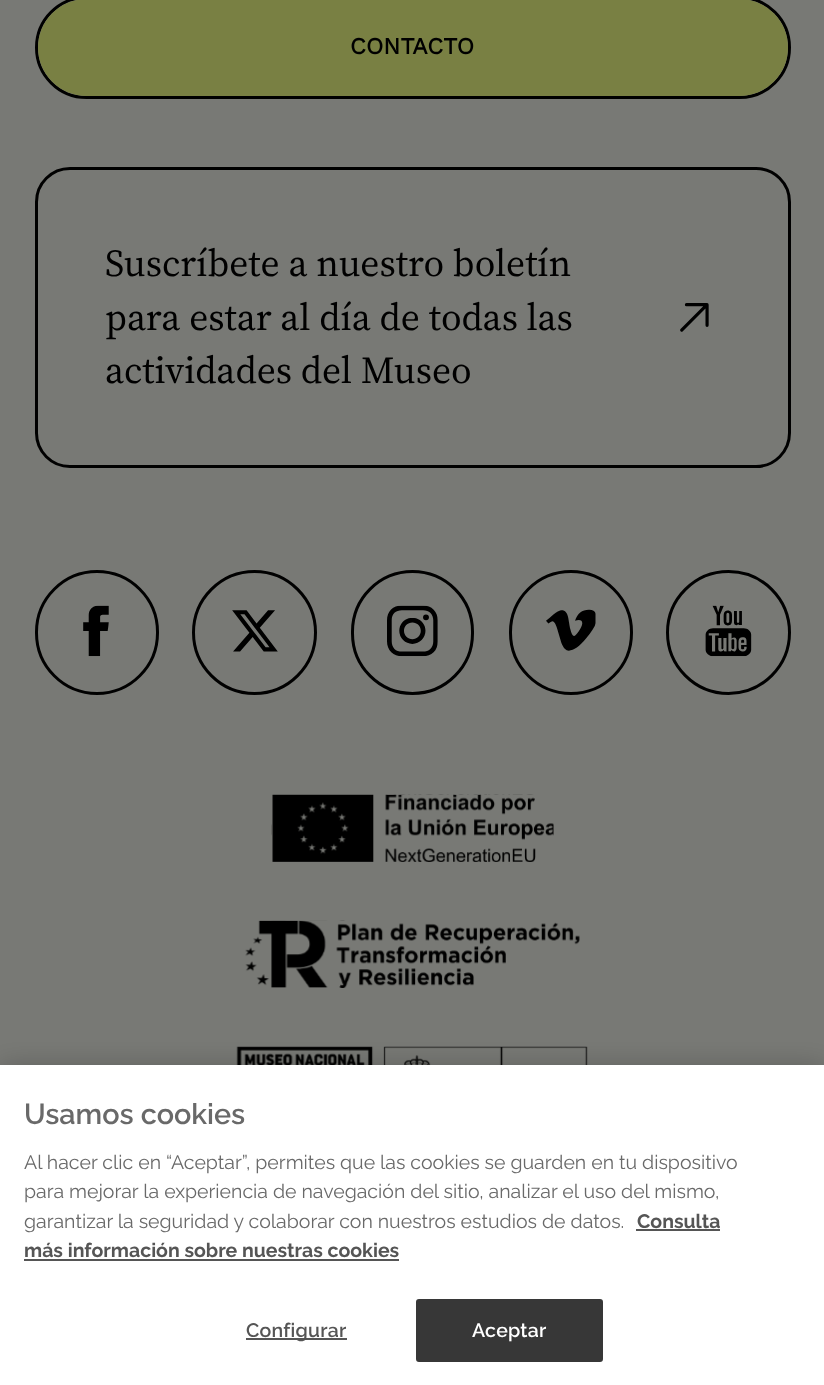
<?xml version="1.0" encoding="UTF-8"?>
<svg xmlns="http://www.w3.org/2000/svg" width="824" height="1385">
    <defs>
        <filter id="blur1" x="-50%" y="-200%" width="200%" height="500%"><feGaussianBlur stdDeviation="13.5"/></filter>
    </defs>
    <rect width="100%" height="100%" fill="#787975"/>
    <rect x="36.5" y="-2.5" width="753" height="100" rx="50" fill="none" stroke="#000000" stroke-width="3"/>
    <rect x="38" y="-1" width="750" height="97" rx="48.5" fill="#798043"/>
    <text x="350" y="54" font-family="Work Sans" font-size="23.25" font-weight="700" fill="#000000">CONTACTO</text>
    <rect x="36.5" y="168.5" width="753" height="298" rx="33.5" fill="none" stroke="#000000" stroke-width="3"/>
    <text font-family="'Source Serif 4'" font-size="38" fill="#000000">
        <tspan x="105" y="276">Suscríbete a nuestro boletín</tspan>
        <tspan x="105" y="330">para estar al día de todas las</tspan>
        <tspan x="105" y="383">actividades del Museo</tspan>
    </text>
    <image x="680" y="303" width="29" height="29" href="img_01.png"/>
    <rect x="36.5" y="571.5" width="121" height="122" rx="60.5" fill="none" stroke="#000000" stroke-width="3"/>
    <image x="83" y="605" width="26" height="52" href="img_02.png"/>
    <circle cx="254.5" cy="632.5" r="61" fill="none" stroke="#000000" stroke-width="3"/>
    <image x="232" y="610" width="46" height="42" href="img_03.png"/>
    <rect x="352.5" y="571.5" width="120" height="122" rx="60" fill="none" stroke="#000000" stroke-width="3"/>
    <image x="387" y="605" width="51" height="52" href="img_04.png"/>
    <rect x="510.5" y="571.5" width="121" height="122" rx="60.5" fill="none" stroke="#000000" stroke-width="3"/>
    <image x="546" y="609" width="50" height="42" href="img_05.png"/>
    <circle cx="728.5" cy="632.5" r="61" fill="none" stroke="#000000" stroke-width="3"/>
    <image x="705" y="605" width="47" height="52" href="img_06.png"/>
    <image x="271" y="794" width="283" height="68" href="img_07.png"/>
    <image x="245" y="920" width="335" height="68" href="img_08.png"/>
    <image x="236" y="1046" width="352" height="19" href="img_09.png"/>
    <rect x="0" y="1065" width="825" height="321" fill="#000000" fill-opacity="0.2" filter="url(#blur1)"/>
    <rect x="0" y="1065" width="824" height="320" fill="#FFFFFF"/>
    <text x="24" y="1124" font-family="Raleway" font-size="28.75" font-weight="600" fill="#696969">Usamos cookies</text>
    <text font-family="Raleway" font-size="19.5" fill="#696969">
        <tspan x="24" y="1169">Al hacer clic en “Aceptar”, permites que las cookies se guarden en tu dispositivo</tspan>
        <tspan x="24" y="1198">para mejorar la experiencia de navegación del sitio, analizar el uso del mismo,</tspan>
        <tspan x="24" y="1228">garantizar la seguridad y colaborar con nuestros estudios de datos.</tspan>
    </text>
    <text x="637" y="1228" font-family="Raleway" font-size="19.5" font-weight="700" fill="#555555">Consulta</text>
    <rect x="636" y="1229" width="84" height="2" fill="#555555"/>
    <text x="24" y="1257" font-family="Raleway" font-size="19.5" font-weight="700" fill="#555555">más información sobre nuestras cookies</text>
    <rect x="24" y="1259" width="375" height="2" fill="#555555"/>
    <rect x="246" y="1338" width="101" height="2" fill="#555555"/>
    <text x="246" y="1337" font-family="Raleway" font-size="19.5" font-weight="600" letter-spacing="0.25" fill="#555555">Configurar</text>
    <rect x="417" y="1300" width="185" height="61" rx="2" fill="#373737" stroke="#373737" stroke-width="2"/>
    <text x="472" y="1337" font-family="Raleway" font-size="19.5" font-weight="600" letter-spacing="0.25" fill="#FFFFFF">Aceptar</text>
</svg>
